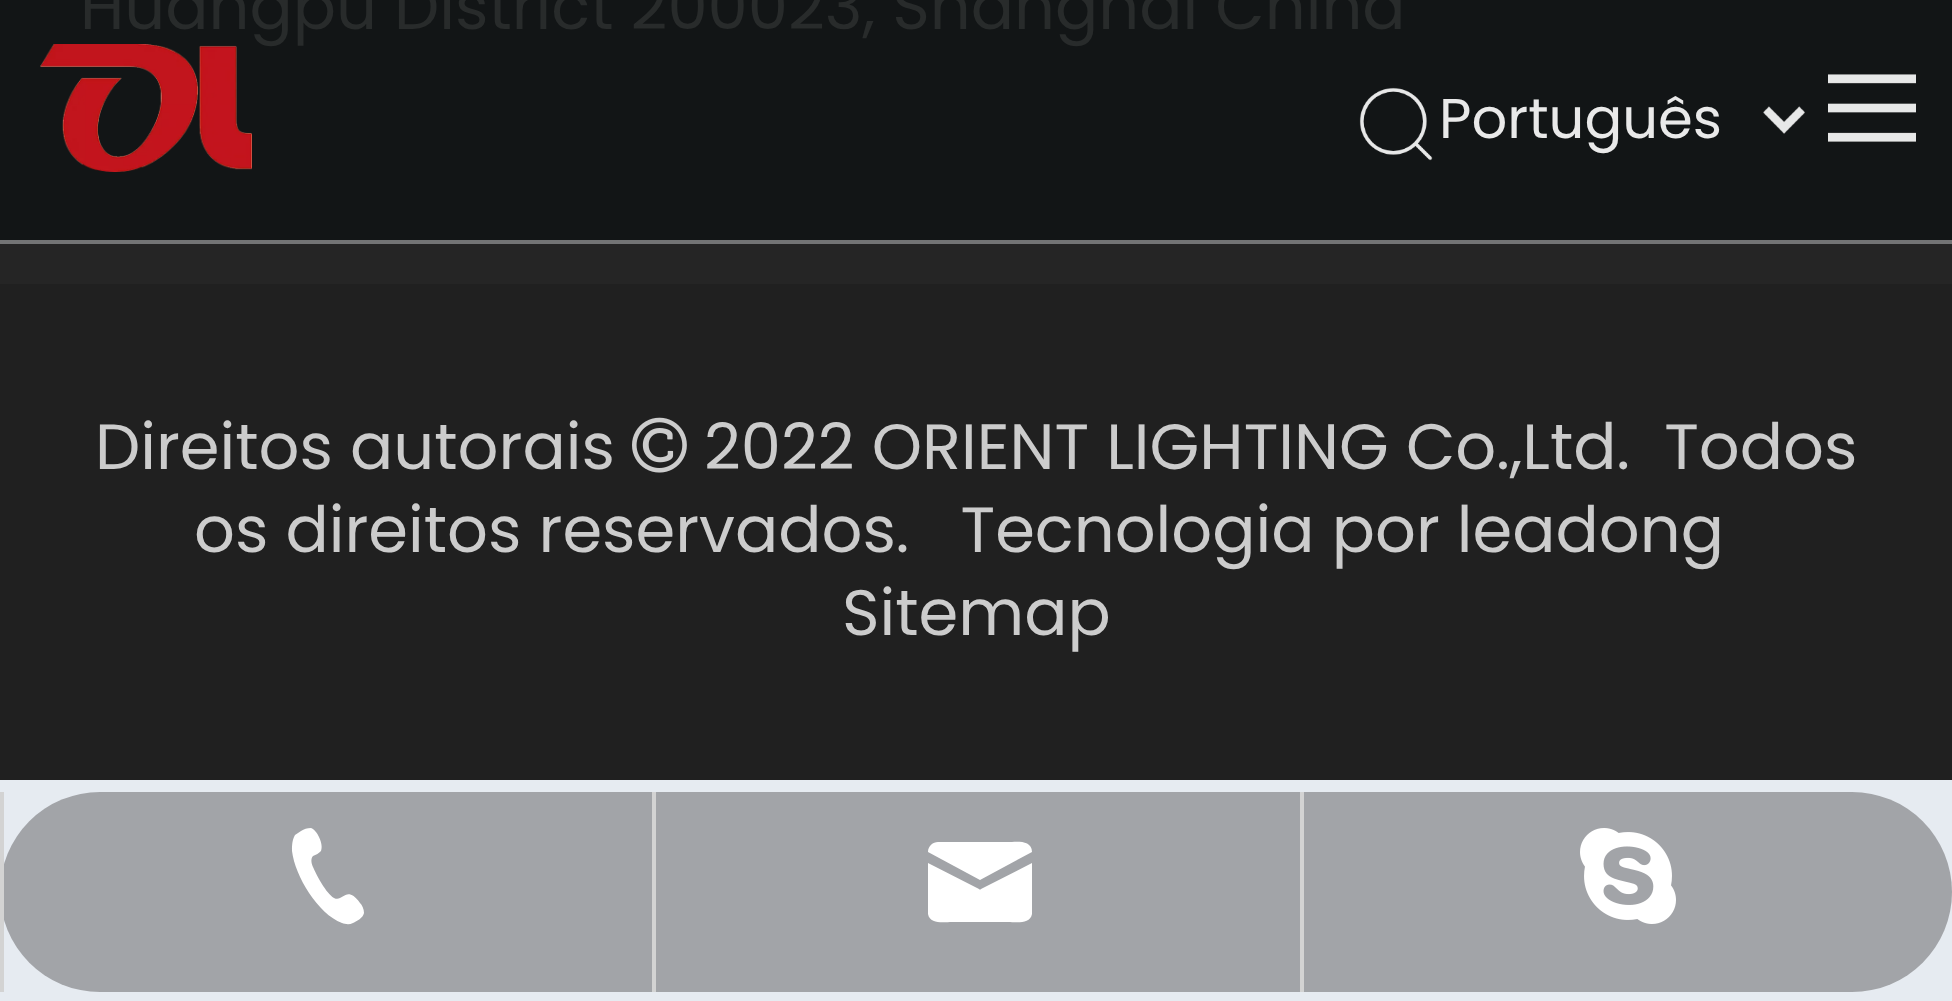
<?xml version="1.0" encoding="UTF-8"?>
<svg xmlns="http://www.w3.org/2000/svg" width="1952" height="1001">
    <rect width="100%" height="100%" fill="#E6EBF1"/>
    <rect x="0" y="244" width="1952" height="40" fill="#252525"/>
    <rect x="0" y="0" width="1952" height="240" fill="#121516"/>
    <text x="80" y="29" font-family="Poppins" font-size="64" fill="#282B2B">Huangpu District 200023, Shanghai China</text>
    <rect x="0" y="792" width="1952" height="200" rx="100" fill="#A2A4A8"/>
    <rect x="0" y="792" width="4" height="200" fill="#D3D3D3"/>
    <path d="M 353 923 C 349 925 345 924 342 923 C 318 914 295 876 292 851 C 292 846 292 840 295 835 L 301 831 C 304 829 307 828 311 828 C 317 830 324 844 321 851 C 319 853 316 855 313 856 C 310 859 312 865 313 867 C 317 876 326 893 334 898 C 343 903 346 884 360 903 C 362 905 364 909 364 913 C 363 918 357 921 353 923 Z" fill="#FFFFFF"/>
    <rect x="652" y="792" width="4" height="200" fill="#D3D3D3"/>
    <path d="M 938 842 H 1008 C 1015 842 1032 839 1032 852 L 980 880 L 928 852 C 928 846 933 842 938 842 Z M 928 863 V 914 C 930 925 945 922 952 922 H 1008 C 1015 922 1030 925 1032 914 V 863 L 981 889 C 980 890 980 890 979 889 Z" fill="#FFFFFF"/>
    <rect x="1300" y="792" width="4" height="200" fill="#D3D3D3"/>
    <image x="1580" y="828" width="96" height="96" href="img_01.png"/>
    <rect x="0" y="284" width="1952" height="496" fill="#202020"/>
    <text x="95" y="469" font-family="Poppins" font-size="64" fill="#CCCCCC">Direitos autorais</text>
    <image x="632" y="417" width="55" height="56" href="img_02.png"/>
    <text x="704" y="469" font-family="Poppins" font-size="64" fill="#CCCCCC" xml:space="preserve">2022 ORIENT LIGHTING Co.,Ltd.  Todos</text>
    <text x="194" y="552" font-family="Poppins" font-size="64" fill="#CCCCCC" xml:space="preserve">os direitos reservados.   Tecnologia por leadong</text>
    <text x="842" y="635" font-family="Poppins" font-size="64" fill="#CCCCCC">Sitemap</text>
    <rect x="0" y="240" width="1952" height="4" fill="#737475"/>
    <image x="40" y="44" width="212" height="128" href="img_03.png"/>
    <image x="1359" y="87" width="74" height="74" href="img_04.png"/>
    <text x="1439" y="138" font-family="Poppins" font-size="56" fill="#E9E9E9">Português</text>
    <image x="1763" y="106" width="42" height="28" href="img_05.png"/>
    <image x="1828" y="74" width="88" height="68" href="img_06.png"/>
</svg>
